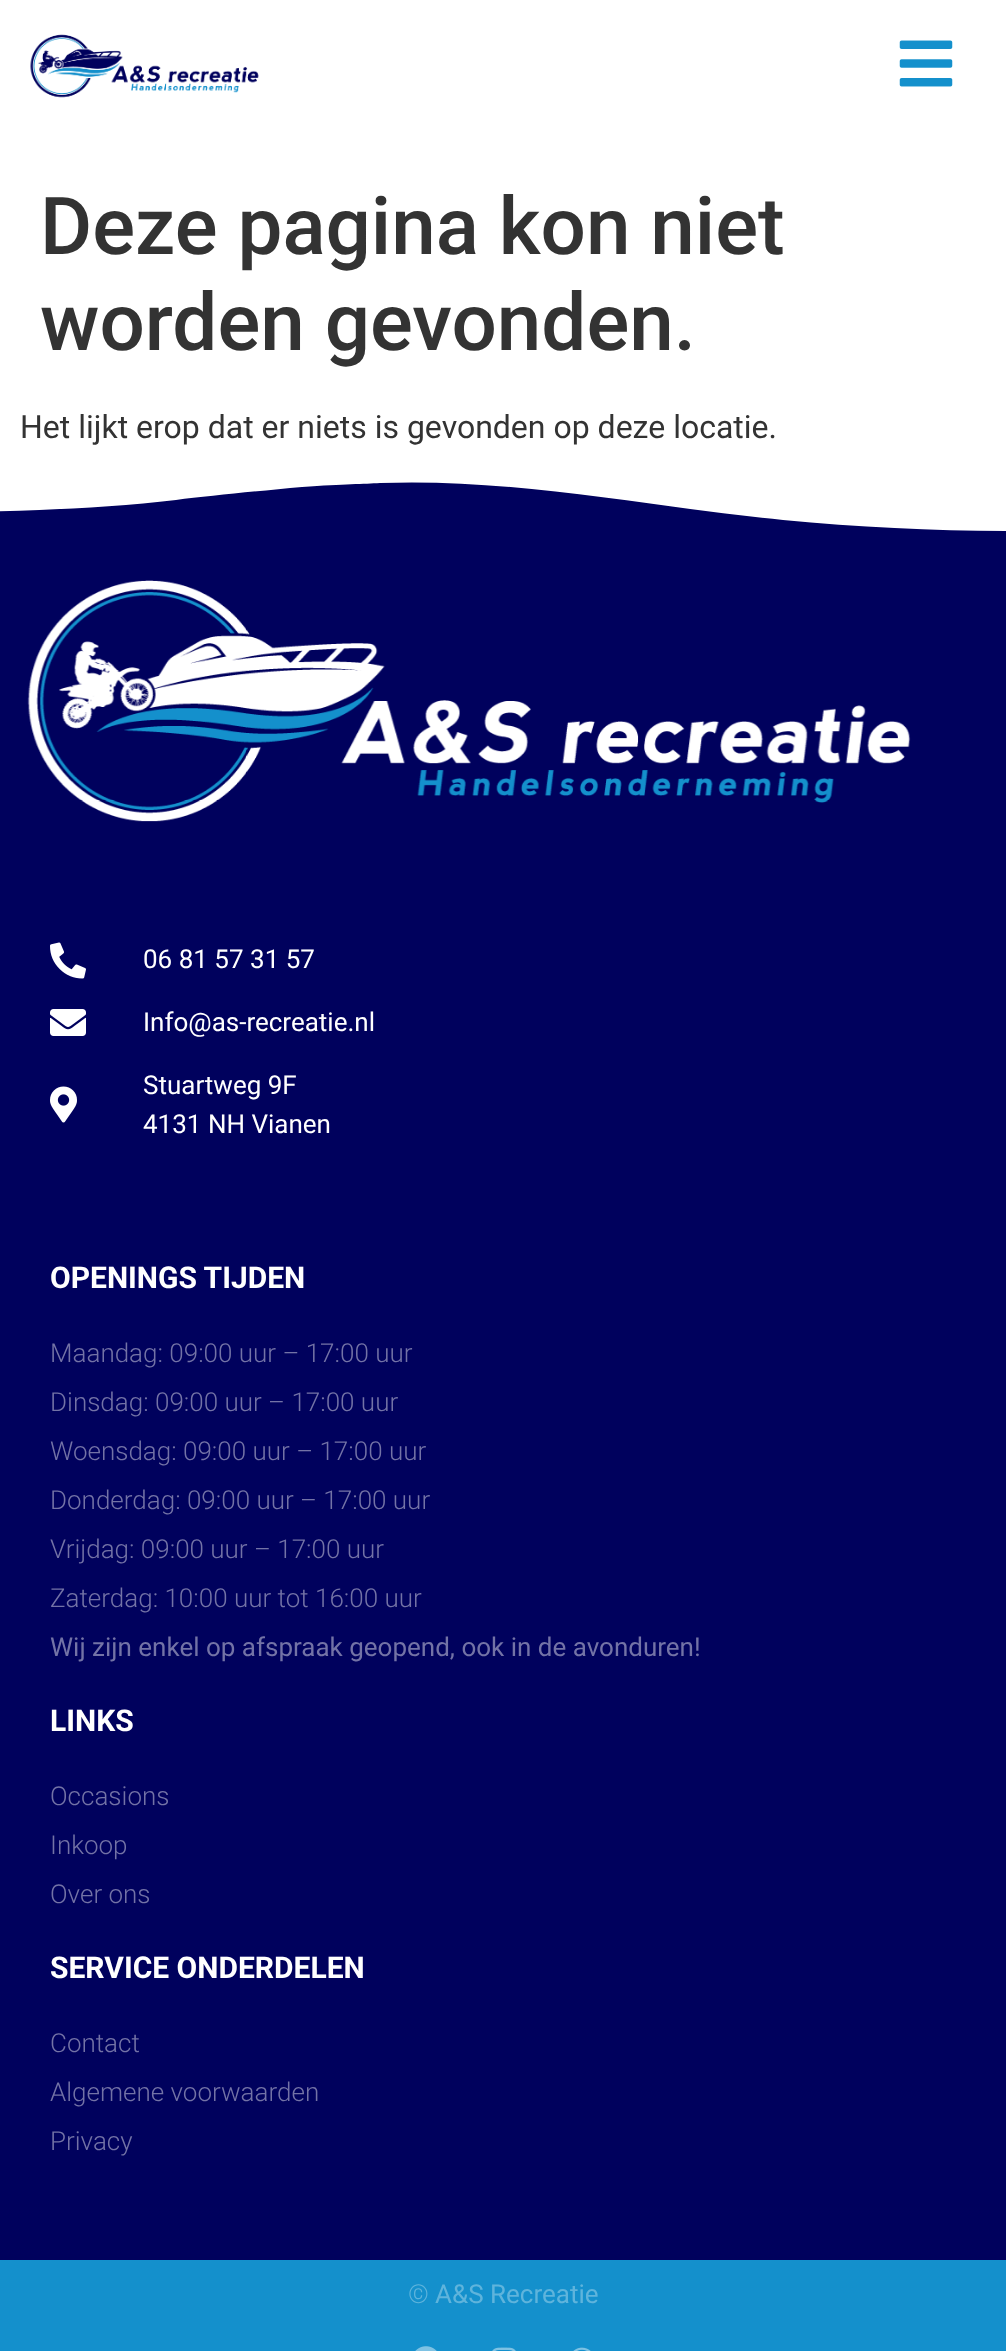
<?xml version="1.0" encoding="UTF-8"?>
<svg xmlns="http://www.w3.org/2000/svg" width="1006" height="2351">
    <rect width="100%" height="100%" fill="#FFFFFF"/>
    <image x="30" y="34" width="229" height="64" href="img_01.png"/>
    <image x="899" y="40" width="54" height="47" href="img_02.png"/>
    <text font-family="Roboto" font-size="80" font-weight="500" fill="#333333">
        <tspan x="40" y="254">Deze pagina kon niet</tspan>
        <tspan x="40" y="350">worden gevonden.</tspan>
    </text>
    <text x="20" y="438" font-family="Roboto" font-size="32" fill="#333333">Het lijkt erop dat er niets is gevonden op deze locatie.</text>
    <rect x="0" y="482" width="1006" height="1778" fill="#00015D"/>
    <path d="M 380 483 C 516 478 649 507 783 520 C 888 530 992 533 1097 530 C 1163 528 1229 524 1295 516 V 480 H -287 V 496 C -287 496 -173 513 -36 512 C 26 511 110 508 176 500 C 209 496 258 491 302 487 C 345 484 364 484 380 483 Z" fill="#FFFFFF"/>
    <image x="27" y="580" width="884" height="242" href="img_03.png"/>
    <image x="50" y="942" width="36" height="37" href="img_04.png"/>
    <text x="143" y="968" font-family="Roboto" font-size="26" fill="#FFFFFF">06 81 57 31 57</text>
    <image x="50" y="1009" width="36" height="27" href="img_05.png"/>
    <text x="143" y="1031" font-family="Roboto" font-size="26" fill="#FFFFFF">Info@as-recreatie.nl</text>
    <image x="50" y="1086" width="27" height="37" href="img_06.png"/>
    <text font-family="Roboto" font-size="26" fill="#FFFFFF">
        <tspan x="143" y="1094">Stuartweg 9F</tspan>
        <tspan x="143" y="1133">4131 NH Vianen</tspan>
    </text>
    <text x="50" y="1288" font-family="Roboto" font-size="30" font-weight="700" fill="#FFFFFF">OPENINGS TIJDEN</text>
    <text font-family="Roboto" font-size="26" font-weight="300" fill="#7373A6">
        <tspan x="50" y="1362">Maandag: 09:00 uur – 17:00 uur</tspan>
        <tspan x="50" y="1411">Dinsdag: 09:00 uur – 17:00 uur</tspan>
        <tspan x="50" y="1460">Woensdag: 09:00 uur – 17:00 uur</tspan>
        <tspan x="50" y="1509">Donderdag: 09:00 uur – 17:00 uur</tspan>
        <tspan x="50" y="1558">Vrijdag: 09:00 uur – 17:00 uur</tspan>
        <tspan x="50" y="1607">Zaterdag: 10:00 uur tot 16:00 uur</tspan>
    </text>
    <text x="50" y="1656" font-family="Roboto" font-size="26" fill="#7373A6">Wij zijn enkel op afspraak geopend, ook in de avonduren!</text>
    <text x="50" y="1731" font-family="Roboto" font-size="30" font-weight="700" fill="#FFFFFF">LINKS</text>
    <text font-family="Roboto" font-size="26" font-weight="300" fill="#7373A6">
        <tspan x="50" y="1805">Occasions</tspan>
        <tspan x="50" y="1854">Inkoop</tspan>
        <tspan x="50" y="1903">Over ons</tspan>
    </text>
    <text x="50" y="1978" font-family="Roboto" font-size="30" font-weight="700" fill="#FFFFFF">SERVICE ONDERDELEN</text>
    <text font-family="Roboto" font-size="26" font-weight="300" fill="#7373A6">
        <tspan x="50" y="2052">Contact</tspan>
        <tspan x="50" y="2101">Algemene voorwaarden</tspan>
        <tspan x="50" y="2150">Privacy</tspan>
    </text>
    <rect x="0" y="2260" width="1006" height="91" fill="#1490CC"/>
    <text x="408" y="2303" font-family="Roboto" font-size="26" font-weight="300" fill="#5FB4DC">©</text>
    <text x="435" y="2303" font-family="Roboto" font-size="26" fill="#5FB4DC">A&amp;S Recreatie</text>
    <image x="415" y="2346" width="22" height="5" href="img_07.png"/>
    <image x="492" y="2347" width="24" height="4" href="img_08.png"/>
    <image x="573" y="2347" width="18" height="4" href="img_09.png"/>
</svg>
